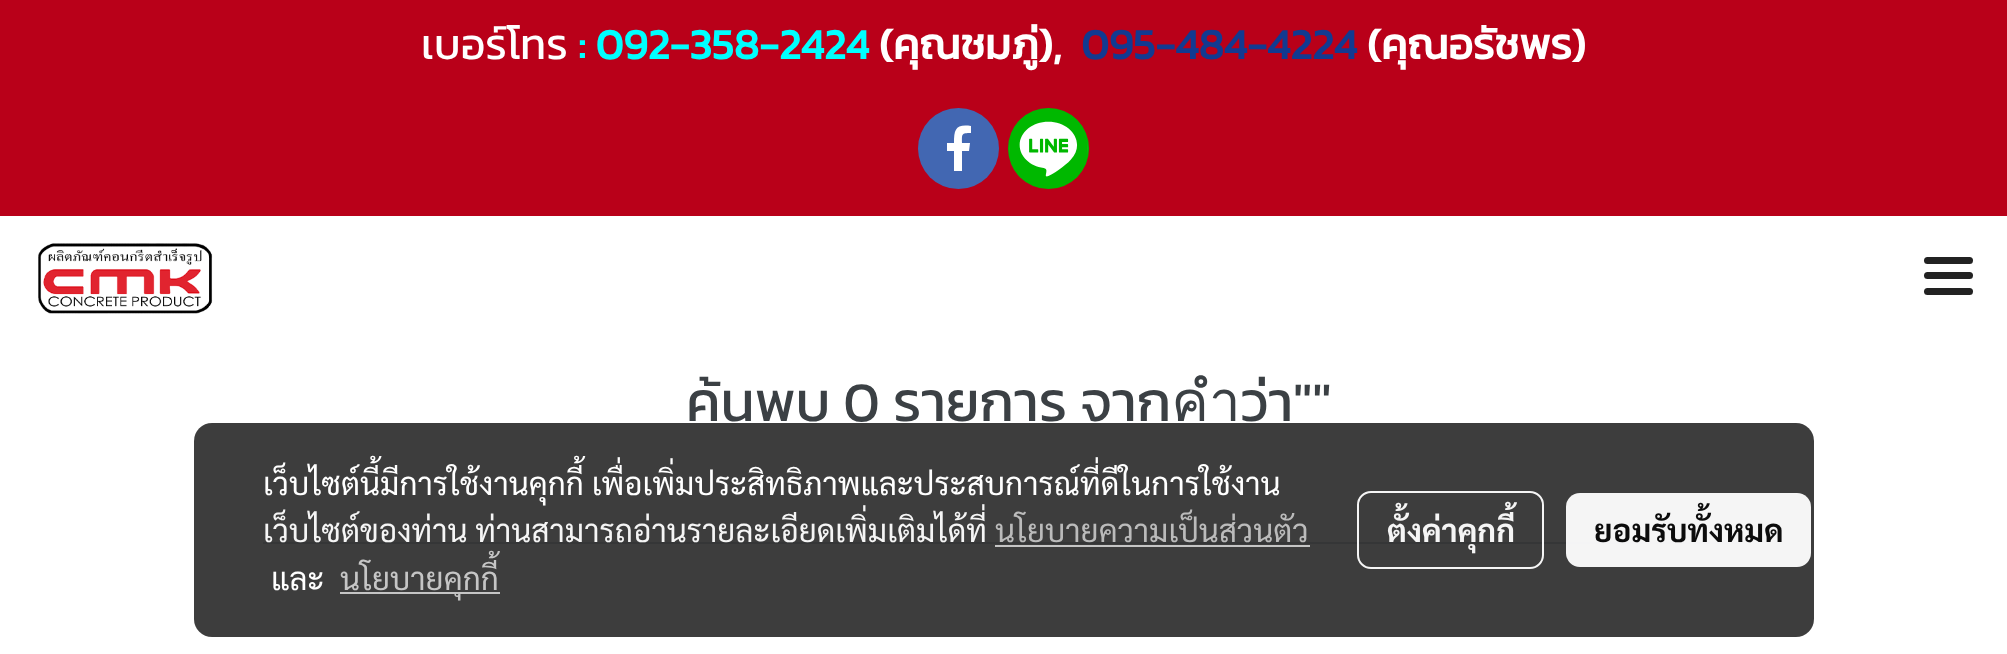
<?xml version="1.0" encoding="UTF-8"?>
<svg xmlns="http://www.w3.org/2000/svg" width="2007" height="654">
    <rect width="100%" height="100%" fill="#FFFFFF"/>
    <rect x="0" y="0" width="2007" height="216" fill="#B90019"/>
    <text x="421" y="59" font-family="Kanit" font-size="42.75" fill="#FFFFFF">เบอร์โทร</text>
    <text x="578" y="59" font-family="Kanit" font-size="42.75" font-weight="700" fill="#00FFFF">: 092-358-2424</text>
    <text x="879" y="59" font-family="Kanit" font-size="42.75" font-weight="700" fill="#FFFFFF">(คุณชมภู่),</text>
    <text x="1081" y="59" font-family="Kanit" font-size="42.75" font-weight="700" fill="#123A91">095-484-4224</text>
    <text x="1367" y="59" font-family="Kanit" font-size="42.75" font-weight="700" fill="#FFFFFF">(คุณอรัชพร)</text>
    <circle cx="958.5" cy="148.5" r="40.5" fill="#4267B2"/>
    <path d="M 954 171 V 151 H 947 V 143 H 954 C 954 129 956 124 971 126 V 133 C 961 133 962 134 962 143 H 970 L 969 151 H 962 V 171" fill="#FFFFFF"/>
    <circle cx="1048.5" cy="148.5" r="40.5" fill="#00B800"/>
    <image x="1009" y="121" width="79" height="56" href="img_01.png"/>
    <image x="38" y="243" width="175" height="71" href="img_02.png"/>
    <rect x="1924" y="272" width="49" height="7" rx="3.5" fill="#222222"/>
    <rect x="1924" y="257" width="49" height="7" rx="3.5" fill="#222222"/>
    <rect x="1924" y="288" width="49" height="7" rx="3.5" fill="#222222"/>
    <text x="686" y="421" font-family="Kanit" font-size="56.25" fill="#3B4044">ค้นพบ 0 รายการ จากคำว่า""</text>
    <rect x="263" y="542" width="1481" height="2" fill="#DEE2E6"/>
    <rect x="194" y="423" width="1620" height="214" rx="18" fill="#000000" fill-opacity="0.76"/>
    <text x="263" y="495" font-family="Sarabun" font-size="31.5" fill="#FFFFFF">เว็บไซต์นี้มีการใช้งานคุกกี้ เพื่อเพิ่มประสิทธิภาพและประสบการณ์ที่ดีในการใช้งาน</text>
    <text x="263" y="542" font-family="Sarabun" font-size="31.5" fill="#F5F5F5">เว็บไซต์ของท่าน ท่านสามารถอ่านรายละเอียดเพิ่มเติมได้ที่</text>
    <text x="995" y="542" font-family="Sarabun" font-size="31.5" fill="#BBBBBB">นโยบายความเป็นส่วนตัว</text>
    <rect x="995" y="545" width="315" height="2" fill="#C5C5C5"/>
    <text x="271" y="590" font-family="Sarabun" font-size="31.5" fill="#FFFFFF">และ</text>
    <rect x="340" y="592" width="160" height="2" fill="#C5C5C5"/>
    <text x="340" y="590" font-family="Sarabun" font-size="31.5" fill="#C5C5C5">นโยบายคุกกี้</text>
    <rect x="1358" y="492" width="185" height="76" rx="13" fill="none" stroke="#FFFFFF" stroke-opacity="0.95" stroke-width="2"/>
    <text x="1387" y="542" font-family="Sarabun" font-size="31.5" font-weight="700" fill="#F5F5F5">ตั้งค่าคุกกี้</text>
    <rect x="1566" y="493" width="245" height="74" rx="14" fill="#FFFFFF" fill-opacity="0.95"/>
    <text x="1594" y="542" font-family="Sarabun" font-size="31.5" font-weight="700" fill="#0C0C0C">ยอมรับทั้งหมด</text>
</svg>
